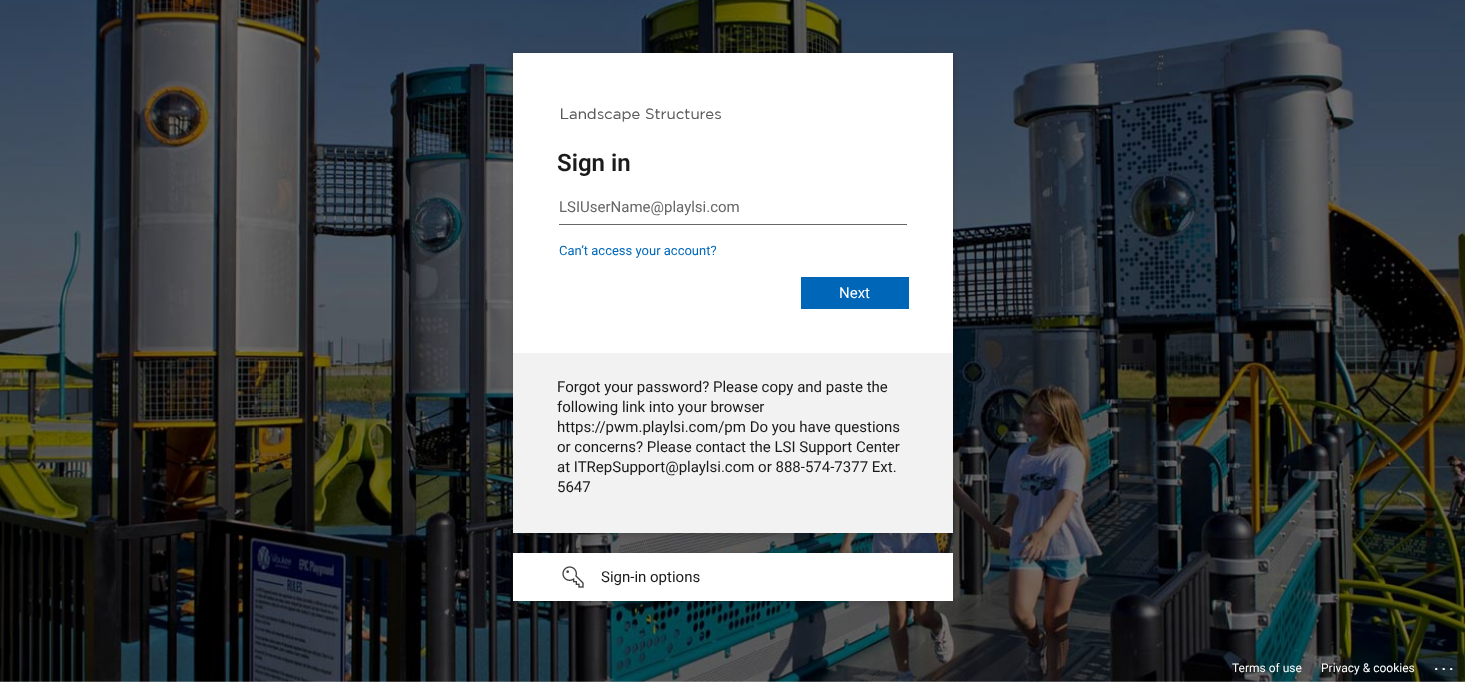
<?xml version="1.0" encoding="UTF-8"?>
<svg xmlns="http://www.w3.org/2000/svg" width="1465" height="682">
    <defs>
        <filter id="blur1" x="-50%" y="-200%" width="200%" height="500%"><feGaussianBlur stdDeviation="3"/></filter>
    </defs>
    <rect width="100%" height="100%" fill="#FFFFFF"/>
    <image x="0" y="0" width="1465" height="682" href="img_01.png"/>
    <rect x="513" y="55" width="440" height="480" fill="#000000" fill-opacity="0.2" filter="url(#blur1)"/>
    <rect x="513" y="53" width="440" height="300" fill="#FFFFFF"/>
    <image x="561" y="108" width="160" height="14" href="img_02.png"/>
    <text x="557" y="171" font-family="Roboto" font-size="24" font-weight="600" fill="#1B1B1B">Sign in</text>
    <rect x="559" y="224" width="348" height="1" fill="#666666"/>
    <text x="559" y="212" font-family="Roboto" font-size="15" fill="#666666">LSIUserName@playlsi.com</text>
    <text x="559" y="255" font-family="Roboto" font-size="13" fill="#0067B8">Can’t access your account?</text>
    <rect x="801" y="277" width="108" height="32" fill="#0067B8"/>
    <text x="839" y="298" font-family="Roboto" font-size="15" fill="#FFFFFF">Next</text>
    <rect x="513" y="353" width="440" height="180" fill="#F2F2F2"/>
    <text font-family="Roboto" font-size="15" fill="#1B1B1B">
        <tspan x="557" y="392">Forgot your password? Please copy and paste the</tspan>
        <tspan x="557" y="412">following link into your browser</tspan>
        <tspan x="557" y="432">https://pwm.playlsi.com/pm Do you have questions</tspan>
        <tspan x="557" y="452">or concerns? Please contact the LSI Support Center</tspan>
        <tspan x="557" y="472">at ITRepSupport@playlsi.com or 888-574-7377 Ext.</tspan>
        <tspan x="557" y="492">5647</tspan>
    </text>
    <rect x="513" y="555" width="440" height="48" fill="#000000" fill-opacity="0.2" filter="url(#blur1)"/>
    <rect x="513" y="553" width="440" height="48" fill="#FFFFFF"/>
    <image x="562" y="566" width="22" height="22" href="img_03.png"/>
    <text x="601" y="582" font-family="Roboto" font-size="15" fill="#1B1B1B">Sign-in options</text>
    <text x="1232" y="672" font-family="Roboto" font-size="12" fill="#FFFFFF">Terms of use</text>
    <text x="1321" y="672" font-family="Roboto" font-size="12" fill="#FFFFFF">Privacy &amp; cookies</text>
    <text x="1434" y="670" font-family="Roboto" font-size="16" font-weight="600" letter-spacing="3" fill="#FFFFFF">...</text>
</svg>
